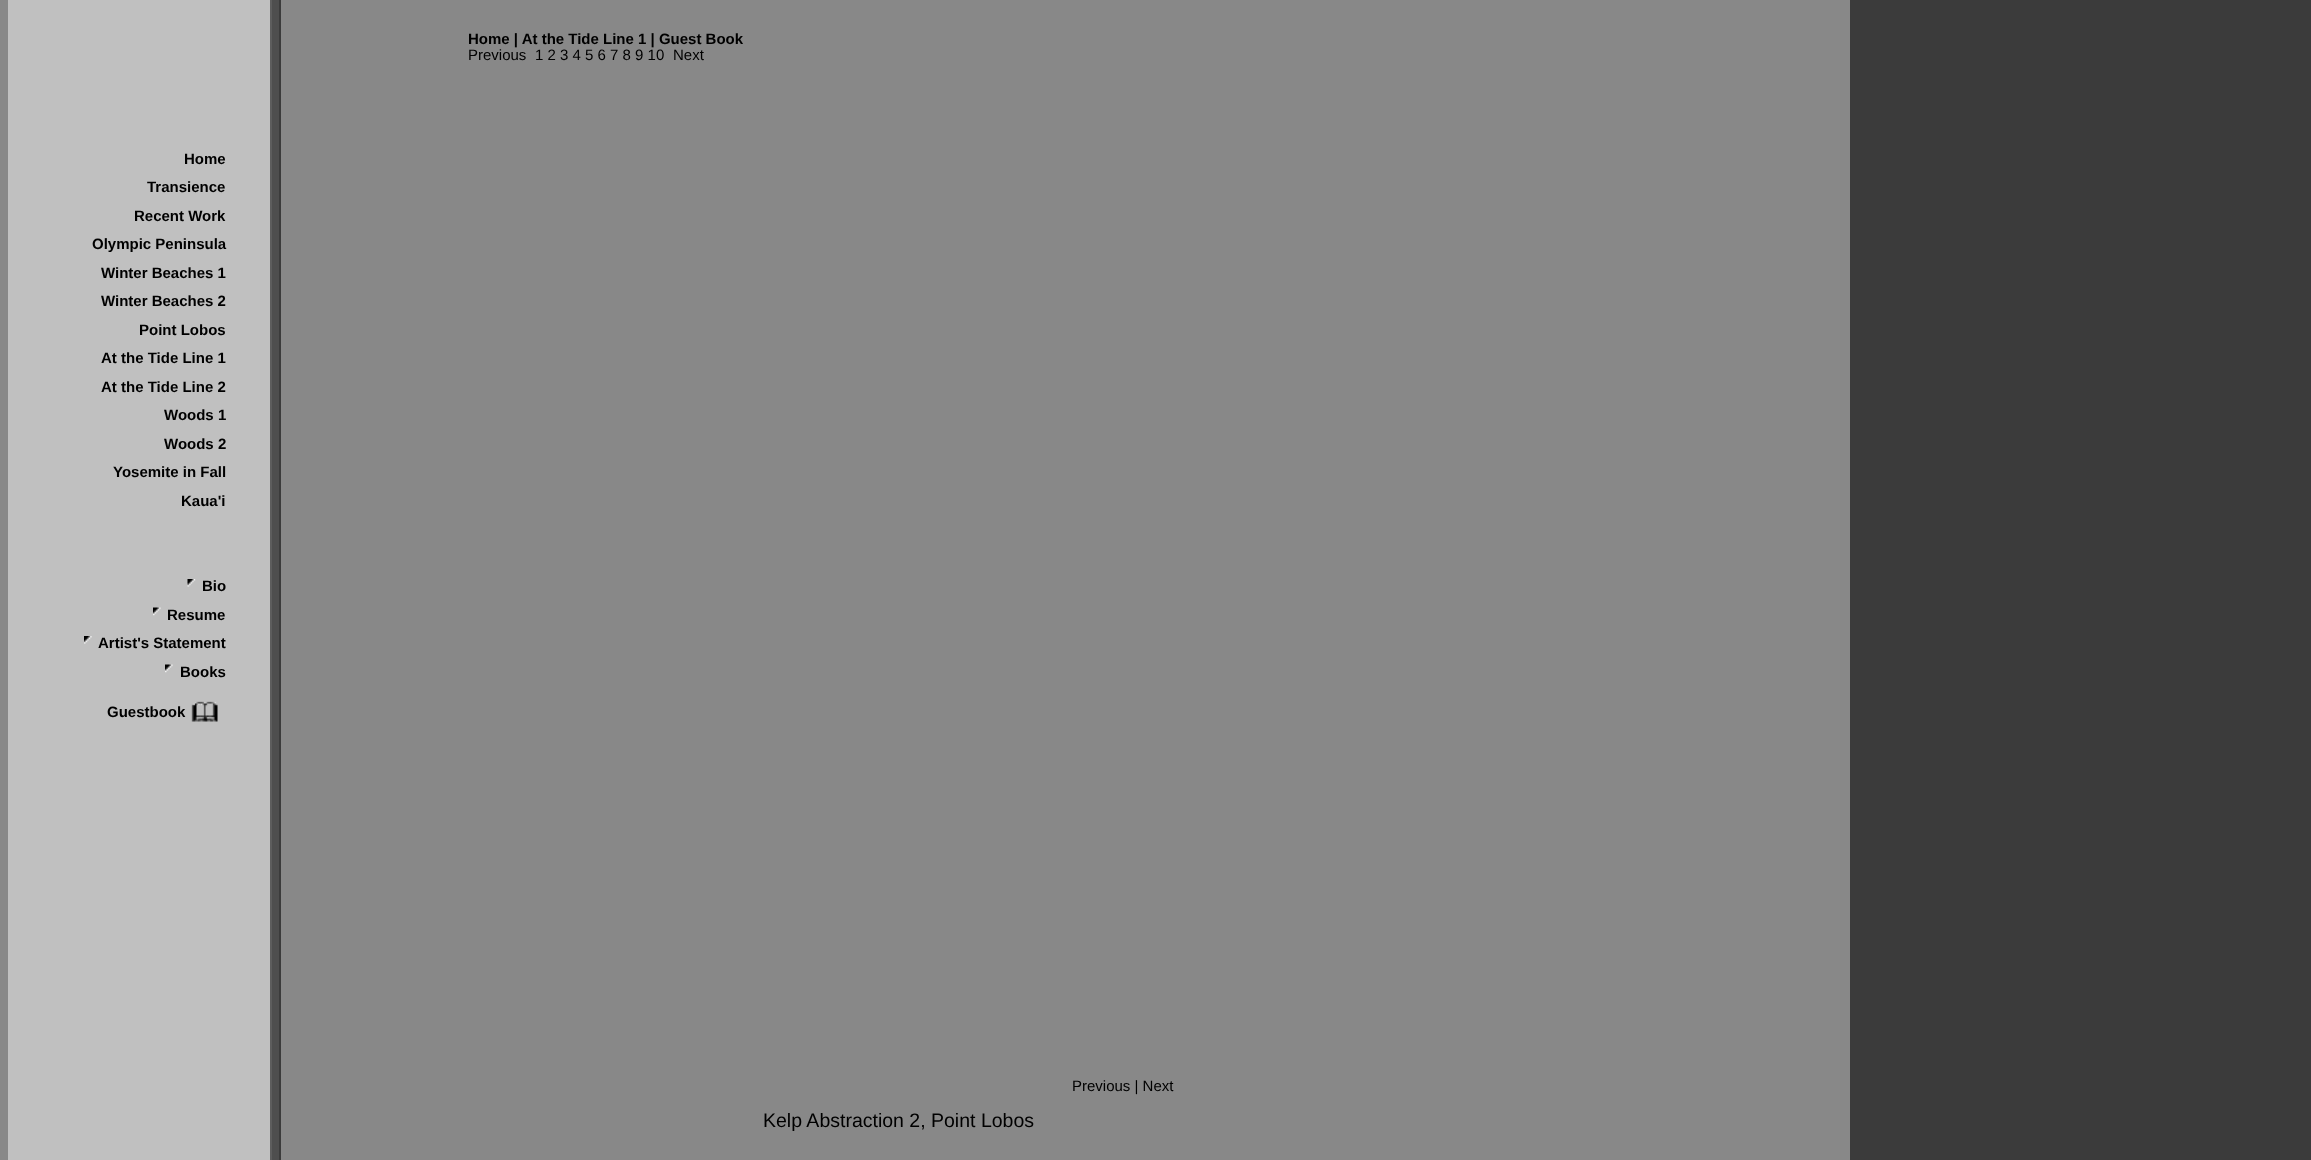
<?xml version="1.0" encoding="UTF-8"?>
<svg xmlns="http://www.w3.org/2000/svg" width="2311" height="1160">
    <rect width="100%" height="100%" fill="#888888"/>
    <rect x="8" y="0" width="262" height="1160" fill="#C0C0C0"/>
    <text x="184" y="164" font-family="Liberation Sans" font-size="15" font-weight="700" fill="#000000">Home</text>
    <text x="147" y="192" font-family="Liberation Sans" font-size="15" font-weight="700" fill="#000000">Transience</text>
    <text x="134" y="221" font-family="Liberation Sans" font-size="15" font-weight="700" fill="#000000">Recent Work</text>
    <text x="92" y="249" font-family="Liberation Sans" font-size="15" font-weight="700" fill="#000000">Olympic Peninsula</text>
    <text font-family="Liberation Sans" font-size="15" font-weight="700" fill="#000000">
        <tspan x="101" y="278">Winter Beaches 1</tspan>
        <tspan x="101" y="306">Winter Beaches 2</tspan>
    </text>
    <text x="139" y="335" font-family="Liberation Sans" font-size="15" font-weight="700" fill="#000000">Point Lobos</text>
    <text font-family="Liberation Sans" font-size="15" font-weight="700" fill="#000000">
        <tspan x="101" y="363">At the Tide Line 1</tspan>
        <tspan x="101" y="392">At the Tide Line 2</tspan>
    </text>
    <text font-family="Liberation Sans" font-size="15" font-weight="700" fill="#000000">
        <tspan x="164" y="420">Woods 1</tspan>
        <tspan x="164" y="449">Woods 2</tspan>
    </text>
    <text x="113" y="477" font-family="Liberation Sans" font-size="15" font-weight="700" fill="#000000">Yosemite in Fall</text>
    <text x="181" y="506" font-family="Liberation Sans" font-size="15" font-weight="700" fill="#000000">Kaua'i</text>
    <image x="187" y="579" width="9" height="8" href="img_01.png"/>
    <text x="202" y="591" font-family="Liberation Sans" font-size="15" font-weight="700" fill="#000000">Bio</text>
    <image x="153" y="607" width="8" height="9" href="img_02.png"/>
    <text x="167" y="620" font-family="Liberation Sans" font-size="15" font-weight="700" fill="#000000">Resume</text>
    <image x="84" y="636" width="8" height="8" href="img_03.png"/>
    <text x="98" y="648" font-family="Liberation Sans" font-size="15" font-weight="700" fill="#000000">Artist's Statement</text>
    <image x="165" y="664" width="8" height="9" href="img_02.png"/>
    <text x="180" y="677" font-family="Liberation Sans" font-size="15" font-weight="700" fill="#000000">Books</text>
    <text x="107" y="717" font-family="Liberation Sans" font-size="15" font-weight="700" fill="#000000">Guestbook</text>
    <image x="191" y="701" width="27" height="21" href="img_04.png"/>
    <rect x="270" y="0" width="2" height="1160" fill="#5D5D5D"/>
    <rect x="272" y="0" width="7" height="1160" fill="#4E4E4E"/>
    <rect x="279" y="0" width="2" height="1160" fill="#3B3B3B"/>
    <text x="468" y="44" font-family="Liberation Sans" font-size="15" font-weight="700" fill="#000000">Home | At the Tide Line 1 | Guest Book</text>
    <text x="468" y="60" font-family="Liberation Sans" font-size="15" fill="#000000">Previous</text>
    <text x="535" y="60" font-family="Liberation Sans" font-size="15" fill="#000000">1 2 3 4 5 6 7 8 9 10</text>
    <text x="673" y="60" font-family="Liberation Sans" font-size="15" fill="#000000">Next</text>
    <text x="1072" y="1091" font-family="Liberation Sans" font-size="15" fill="#000000">Previous | Next</text>
    <text x="763" y="1127" font-family="Liberation Sans" font-size="19.5" fill="#000000">Kelp Abstraction 2, Point Lobos</text>
    <rect x="1850" y="0" width="461" height="1160" fill="#3B3B3B"/>
</svg>
